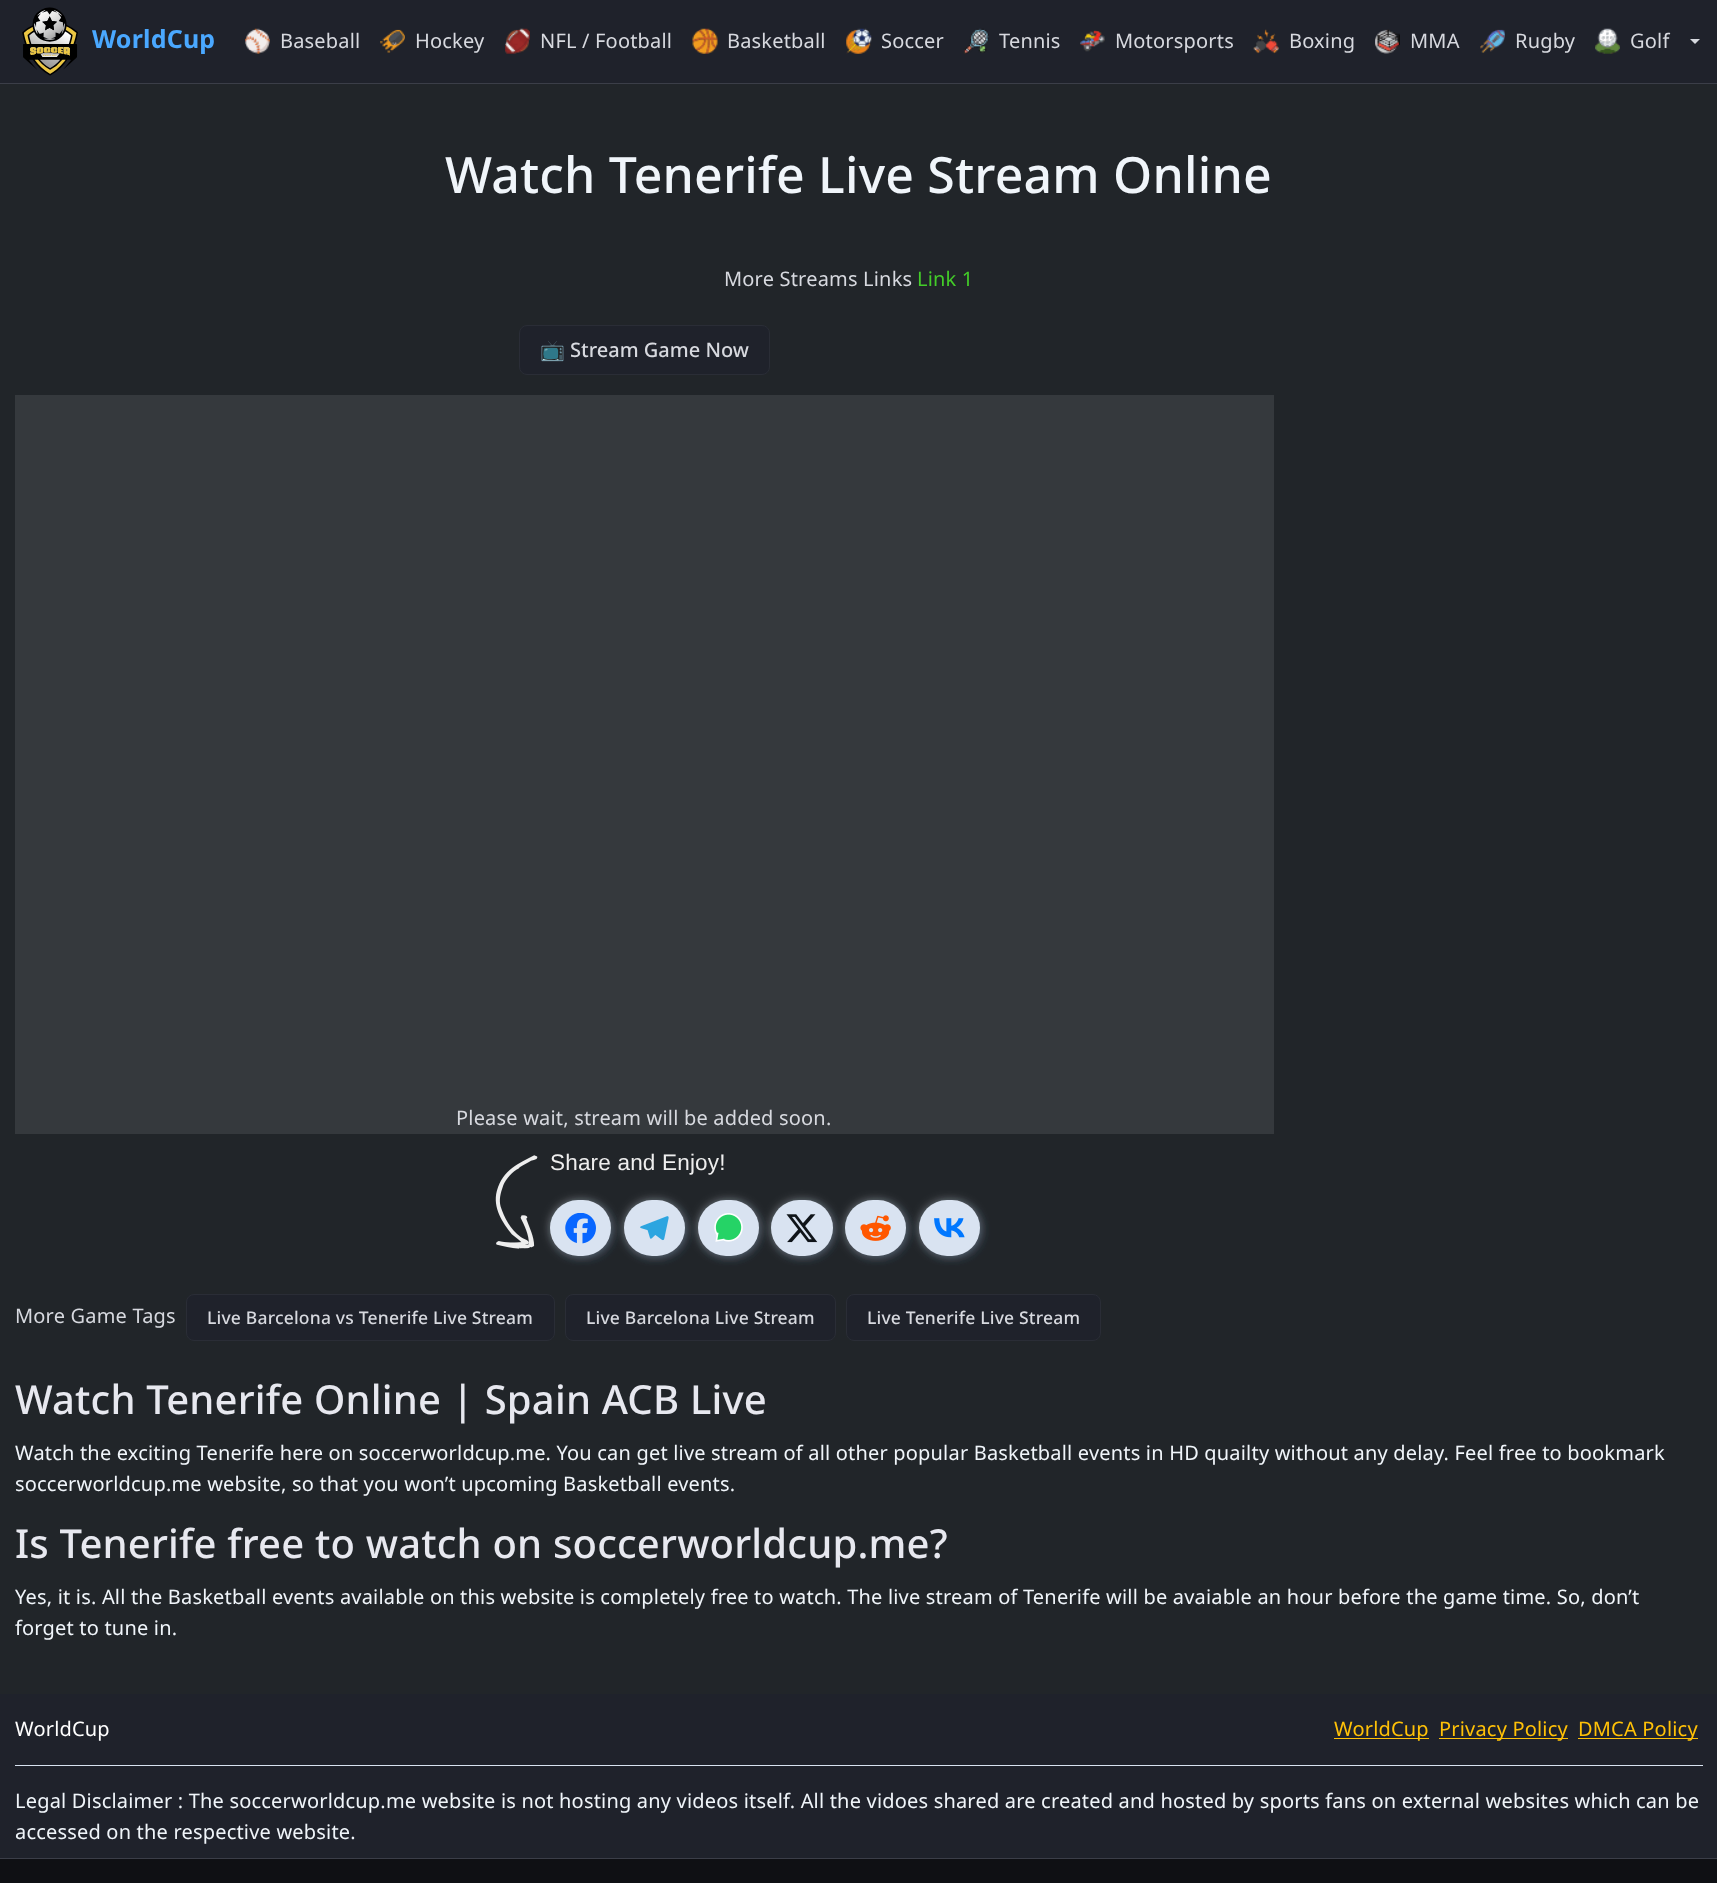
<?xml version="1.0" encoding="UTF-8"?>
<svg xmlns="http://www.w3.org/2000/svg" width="1717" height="1883">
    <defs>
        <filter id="blur1" x="-50%" y="-200%" width="200%" height="500%"><feGaussianBlur stdDeviation="5"/></filter>
    </defs>
    <rect width="100%" height="100%" fill="#0F1014"/>
    <rect x="0" y="0" width="1717" height="83" fill="#1F222B"/>
    <rect x="0" y="83" width="1717" height="1" fill="#3B3E48"/>
    <image x="22" y="7" width="56" height="69" href="img_01.png"/>
    <text x="92" y="48" font-family="Noto Sans" font-size="25" font-weight="700" letter-spacing="0.19" fill="#4AA8FF">WorldCup</text>
    <image x="245" y="28" width="25" height="26" href="img_02.png"/>
    <text x="280" y="48" font-family="Noto Sans" font-size="20" letter-spacing="0.19" fill="#D7D9DF">Baseball</text>
    <image x="380" y="29" width="25" height="24" href="img_03.png"/>
    <text x="415" y="48" font-family="Noto Sans" font-size="20" letter-spacing="0.19" fill="#D7D9DF">Hockey</text>
    <image x="505" y="28" width="25" height="26" href="img_04.png"/>
    <text x="540" y="48" font-family="Noto Sans" font-size="20" letter-spacing="0.19" fill="#D7D9DF">NFL / Football</text>
    <image x="692" y="28" width="26" height="26" href="img_05.png"/>
    <text x="727" y="48" font-family="Noto Sans" font-size="20" letter-spacing="0.19" fill="#D7D9DF">Basketball</text>
    <image x="846" y="28" width="26" height="26" href="img_06.png"/>
    <text x="881" y="48" font-family="Noto Sans" font-size="20" letter-spacing="0.19" fill="#D7D9DF">Soccer</text>
    <image x="963" y="28" width="26" height="26" href="img_07.png"/>
    <text x="999" y="48" font-family="Noto Sans" font-size="20" letter-spacing="0.19" fill="#D7D9DF">Tennis</text>
    <image x="1080" y="30" width="25" height="22" href="img_08.png"/>
    <text x="1115" y="48" font-family="Noto Sans" font-size="20" letter-spacing="0.19" fill="#D7D9DF">Motorsports</text>
    <image x="1253" y="29" width="26" height="25" href="img_09.png"/>
    <text x="1289" y="48" font-family="Noto Sans" font-size="20" letter-spacing="0.19" fill="#D7D9DF">Boxing</text>
    <image x="1375" y="29" width="25" height="25" href="img_10.png"/>
    <text x="1410" y="48" font-family="Noto Sans" font-size="20" letter-spacing="0.19" fill="#D7D9DF">MMA</text>
    <image x="1480" y="29" width="25" height="24" href="img_11.png"/>
    <text x="1515" y="48" font-family="Noto Sans" font-size="20" letter-spacing="0.19" fill="#D7D9DF">Rugby</text>
    <image x="1595" y="28" width="25" height="26" href="img_12.png"/>
    <text x="1630" y="48" font-family="Noto Sans" font-size="20" letter-spacing="0.19" fill="#D7D9DF">Golf</text>
    <path d="M 1690 39 H 1700 L 1695 44 Z" fill="#D7D9DF"/>
    <rect x="0" y="84" width="1717" height="1610" fill="#212529"/>
    <text x="445" y="193" font-family="Noto Sans" font-size="50" font-weight="500" letter-spacing="0.19" fill="#F0F5FA">Watch Tenerife Live Stream Online</text>
    <text x="724" y="286" font-family="Noto Sans" font-size="20" letter-spacing="0.19" fill="#D7D9DF">More Streams Links</text>
    <text x="917" y="286" font-family="Noto Sans" font-size="20" letter-spacing="0.19" fill="#43CC29">Link 1</text>
    <rect x="519.5" y="325.5" width="250" height="49" rx="7.5" fill="#1F222B" stroke="#2A2D36"/>
    <text x="540" y="357" font-family="Noto Color Emoji" font-size="20" fill="#D7D9DF">📺</text>
    <text x="570" y="357" font-family="Noto Sans" font-size="20" font-weight="500" fill="#D7D9DF">Stream Game Now</text>
    <rect x="15" y="395" width="1259" height="739" fill="#35393D"/>
    <text x="456" y="1125" font-family="Noto Sans" font-size="20" letter-spacing="0.19" fill="#D7D9DF">Please wait, stream will be added soon.</text>
    <rect x="550" y="1200" width="61" height="56" rx="28" fill="#FFFFFF" fill-opacity="0.4" filter="url(#blur1)"/>
    <rect x="553" y="1203" width="61" height="56" rx="28" fill="#375E94" fill-opacity="0.2" filter="url(#blur1)"/>
    <image x="495" y="1155" width="43" height="94" href="img_13.png"/>
    <text x="550" y="1170" font-family="Liberation Sans" font-size="22.5" letter-spacing="0.19" fill="#EEEEEE">Share and Enjoy!</text>
    <rect x="550" y="1200" width="61" height="56" rx="28" fill="#D9E3F1"/>
    <image x="565" y="1213" width="31" height="31" href="img_14.png"/>
    <rect x="624" y="1200" width="61" height="56" rx="28" fill="#FFFFFF" fill-opacity="0.4" filter="url(#blur1)"/>
    <rect x="626" y="1203" width="62" height="56" rx="28" fill="#375E94" fill-opacity="0.2" filter="url(#blur1)"/>
    <rect x="624" y="1200" width="61" height="56" rx="28" fill="#D9E3F1"/>
    <image x="640" y="1216" width="29" height="25" href="img_15.png"/>
    <rect x="698" y="1200" width="61" height="56" rx="28" fill="#FFFFFF" fill-opacity="0.4" filter="url(#blur1)"/>
    <rect x="700" y="1203" width="61" height="56" rx="28" fill="#375E94" fill-opacity="0.2" filter="url(#blur1)"/>
    <rect x="698" y="1200" width="61" height="56" rx="28" fill="#D9E3F1"/>
    <image x="714" y="1213" width="29" height="29" href="img_16.png"/>
    <rect x="771" y="1200" width="62" height="56" rx="28" fill="#FFFFFF" fill-opacity="0.4" filter="url(#blur1)"/>
    <rect x="774" y="1203" width="61" height="56" rx="28" fill="#375E94" fill-opacity="0.2" filter="url(#blur1)"/>
    <rect x="771" y="1200" width="62" height="56" rx="28" fill="#D9E3F1"/>
    <image x="786" y="1214" width="32" height="29" href="img_17.png"/>
    <rect x="845" y="1200" width="61" height="56" rx="28" fill="#FFFFFF" fill-opacity="0.4" filter="url(#blur1)"/>
    <rect x="848" y="1203" width="61" height="56" rx="28" fill="#375E94" fill-opacity="0.2" filter="url(#blur1)"/>
    <rect x="845" y="1200" width="61" height="56" rx="28" fill="#D9E3F1"/>
    <image x="860" y="1215" width="31" height="26" href="img_18.png"/>
    <rect x="919" y="1200" width="61" height="56" rx="28" fill="#FFFFFF" fill-opacity="0.4" filter="url(#blur1)"/>
    <rect x="921" y="1203" width="62" height="56" rx="28" fill="#375E94" fill-opacity="0.2" filter="url(#blur1)"/>
    <rect x="919" y="1200" width="61" height="56" rx="28" fill="#D9E3F1"/>
    <image x="934" y="1218" width="31" height="20" href="img_19.png"/>
    <text x="15" y="1323" font-family="Noto Sans" font-size="20" letter-spacing="0.19" fill="#D7D9DF">More Game Tags</text>
    <rect x="186.5" y="1294.5" width="368" height="46" rx="7.5" fill="#1F222B" stroke="#2A2D36"/>
    <text x="207" y="1324" font-family="Noto Sans" font-size="17.5" font-weight="500" letter-spacing="0.19" fill="#D7D9DF">Live Barcelona vs Tenerife Live Stream</text>
    <rect x="565.5" y="1294.5" width="270" height="46" rx="7.5" fill="#1F222B" stroke="#2A2D36"/>
    <text x="586" y="1324" font-family="Noto Sans" font-size="17.5" font-weight="500" letter-spacing="0.19" fill="#D7D9DF">Live Barcelona Live Stream</text>
    <rect x="846.5" y="1294.5" width="254" height="46" rx="7.5" fill="#1F222B" stroke="#2A2D36"/>
    <text x="867" y="1324" font-family="Noto Sans" font-size="17.5" font-weight="500" letter-spacing="0.19" fill="#D7D9DF">Live Tenerife Live Stream</text>
    <text x="15" y="1414" font-family="Noto Sans" font-size="40" font-weight="500" letter-spacing="0.19" fill="#E7E8EF">Watch Tenerife Online | Spain ACB Live</text>
    <text font-family="Noto Sans" font-size="20" letter-spacing="0.19" fill="#F0F5FA">
        <tspan x="15" y="1460">Watch the exciting Tenerife here on soccerworldcup.me. You can get live stream of all other popular Basketball events in HD quailty without any delay. Feel free to bookmark</tspan>
        <tspan x="15" y="1491">soccerworldcup.me website, so that you won’t upcoming Basketball events.</tspan>
    </text>
    <text x="15" y="1558" font-family="Noto Sans" font-size="40" font-weight="500" letter-spacing="0.19" fill="#E7E8EF">Is Tenerife free to watch on soccerworldcup.me?</text>
    <text font-family="Noto Sans" font-size="20" letter-spacing="0.19" fill="#F0F5FA">
        <tspan x="15" y="1604">Yes, it is. All the Basketball events available on this website is completely free to watch. The live stream of Tenerife will be avaiable an hour before the game time. So, don’t</tspan>
        <tspan x="15" y="1635">forget to tune in.</tspan>
    </text>
    <rect x="0" y="1694" width="1717" height="164" fill="#1F222B"/>
    <rect x="0" y="1858" width="1717" height="1" fill="#3B3E48"/>
    <text x="15" y="1736" font-family="Noto Sans" font-size="20" letter-spacing="0.19" fill="#FFFFFF">WorldCup</text>
    <rect x="1334" y="1738" width="95" height="1" fill="#FFC107"/>
    <text x="1334" y="1736" font-family="Noto Sans" font-size="20" letter-spacing="0.19" fill="#FFC107">WorldCup</text>
    <rect x="1439" y="1738" width="129" height="1" fill="#FFC107"/>
    <text x="1439" y="1736" font-family="Noto Sans" font-size="20" letter-spacing="0.19" fill="#FFC107">Privacy Policy</text>
    <rect x="1578" y="1738" width="120" height="1" fill="#FFC107"/>
    <text x="1578" y="1736" font-family="Noto Sans" font-size="20" letter-spacing="0.19" fill="#FFC107">DMCA Policy</text>
    <rect x="15" y="1765" width="1688" height="1" fill="#D9E3F1"/>
    <text font-family="Noto Sans" font-size="20" letter-spacing="0.19" fill="#F0F5FA">
        <tspan x="15" y="1808">Legal Disclaimer : The soccerworldcup.me website is not hosting any videos itself. All the vidoes shared are created and hosted by sports fans on external websites which can be</tspan>
        <tspan x="15" y="1839">accessed on the respective website.</tspan>
    </text>
</svg>
